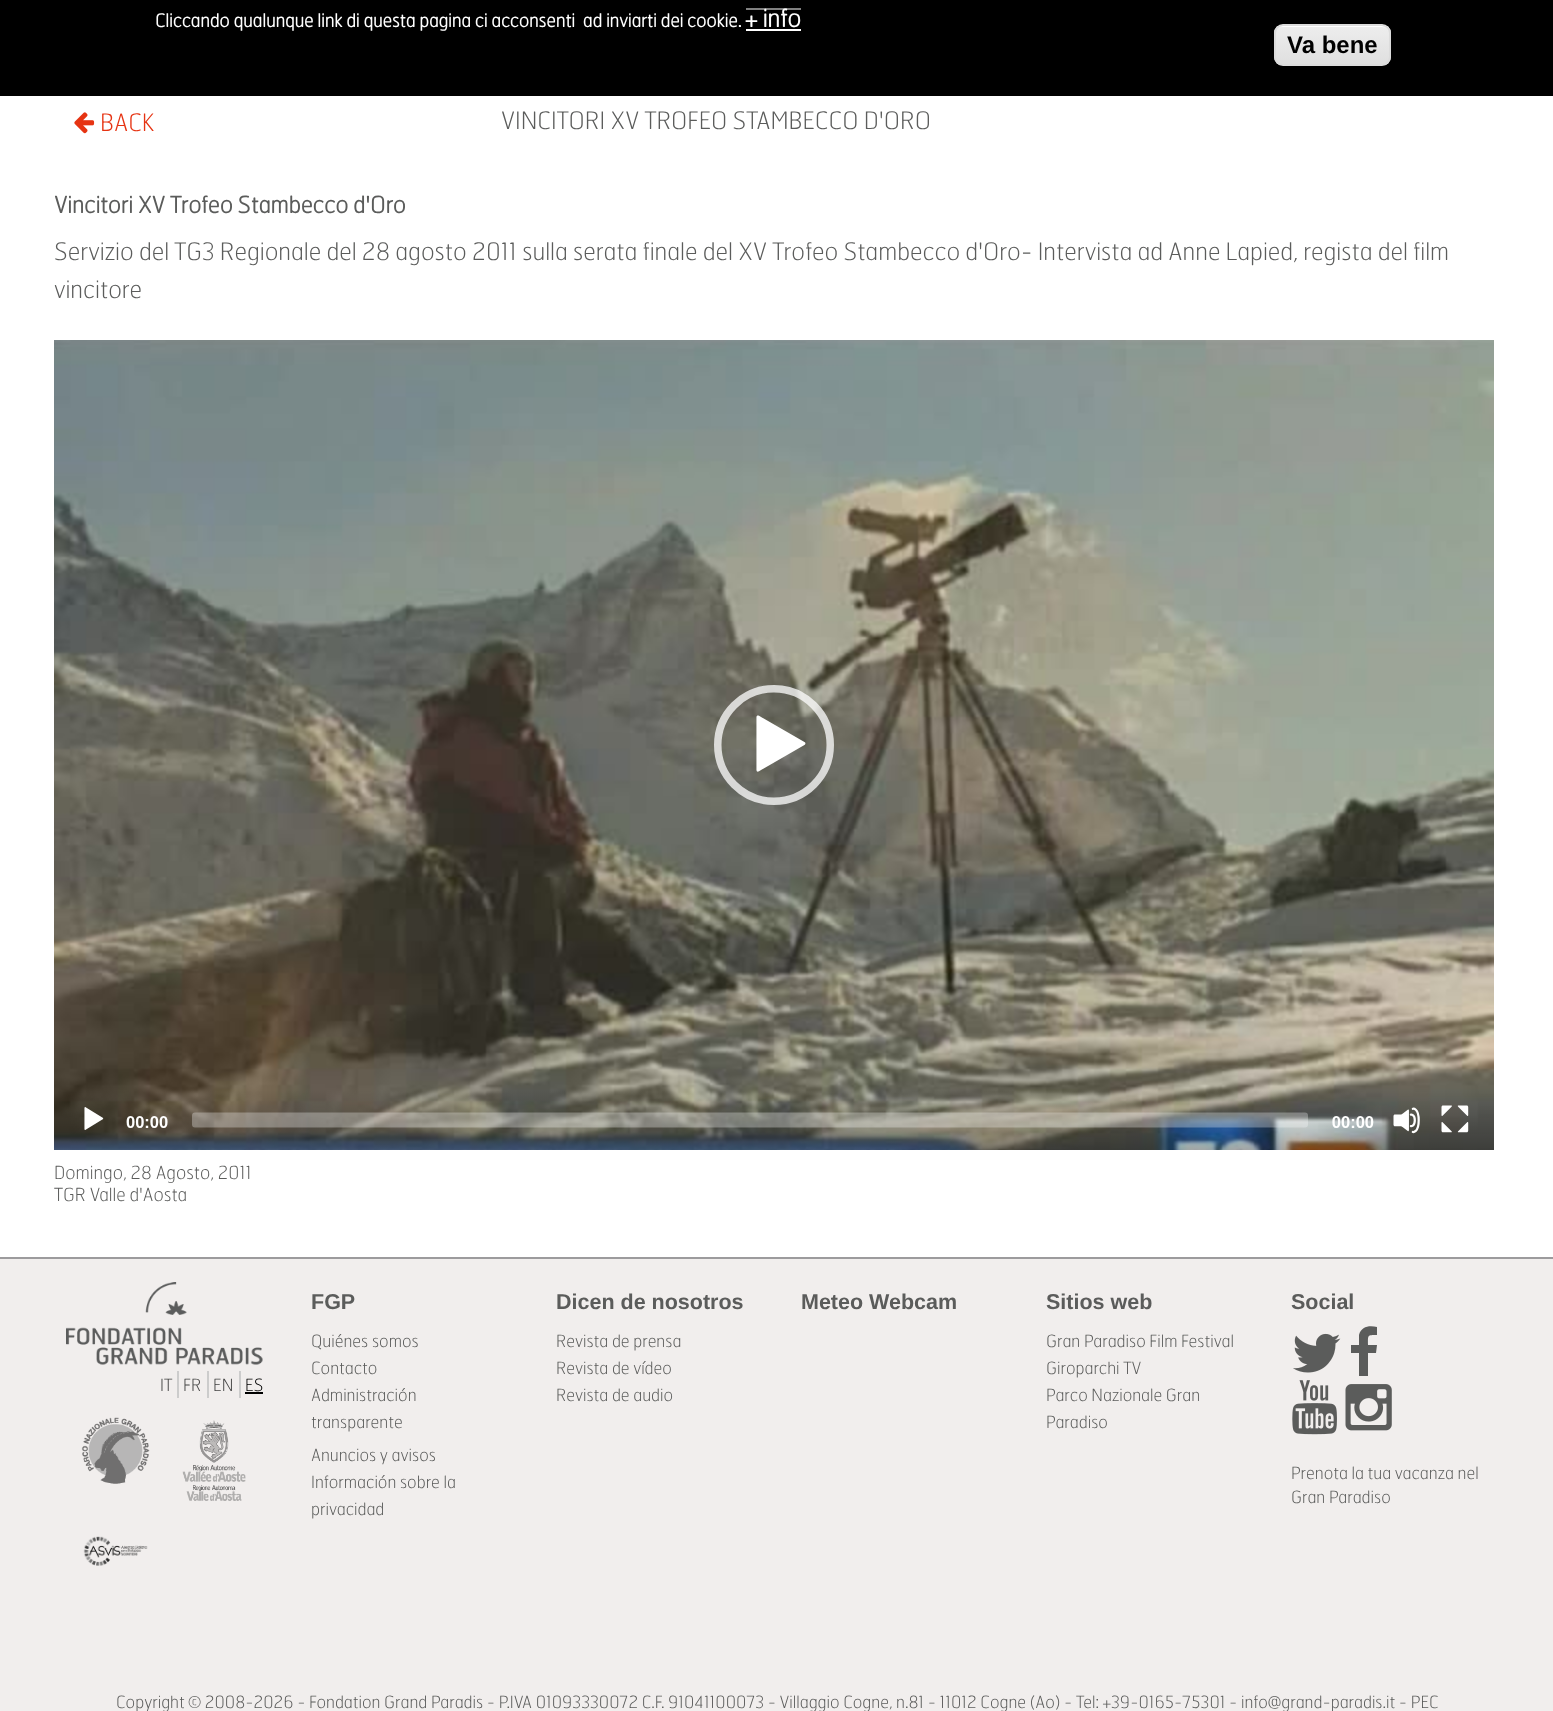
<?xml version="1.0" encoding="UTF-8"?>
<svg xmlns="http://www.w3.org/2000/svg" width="1553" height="1711">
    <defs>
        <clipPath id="clip1"><rect x="1274" y="24" width="117" height="42" rx="9"/></clipPath>
        <linearGradient id="g1" gradientUnits="userSpaceOnUse" x1="1332" y1="25" x2="1332" y2="65"><stop offset="0.05" stop-color="#EDEDED"/><stop offset="1" stop-color="#DFDFDF"/></linearGradient>
    </defs>
    <rect width="100%" height="100%" fill="#FFFFFF"/>
    <rect x="0" y="0" width="1553" height="96" fill="#000000"/>
    <text x="155" y="27" font-family="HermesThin" font-size="18" font-weight="700" fill="#FFFFFF" xml:space="preserve">Cliccando qualunque link di questa pagina ci acconsenti  ad inviarti dei cookie.</text>
    <rect x="746" y="8" width="55" height="2" fill="#808080"/>
    <text x="745" y="27" font-family="HermesThin" font-size="24" font-weight="700" fill="#FFFFFF">+ info</text>
    <rect x="746" y="29" width="55" height="2" fill="#FFFFFF"/>
    <g clip-path="url(#clip1)">
        <rect x="1274" y="26" width="117" height="39" fill="url(#g1)"/>
    </g>
    <path d="M 1282 27 H 1382 C 1386 27 1389 30 1389 34 C 1389 30 1385 26 1381 26 H 1283 C 1279 26 1275 30 1275 34 C 1275 30 1278 27 1282 27 Z" fill="#FFFFFF"/>
    <rect x="1275" y="25" width="115" height="40" rx="8" fill="none" stroke="#DCDCDC" stroke-width="2"/>
    <text x="1287" y="53" font-family="Liberation Sans" font-size="24" font-weight="700" fill="#000000">Va bene</text>
    <image x="74" y="112" width="21" height="22" href="img_01.png"/>
    <text x="100" y="131" font-family="HermesThin" font-size="24" font-weight="100" fill="#E63312">BACK</text>
    <text x="501" y="129" font-family="HermesThin" font-size="24" font-weight="100" fill="#5B5C5B">VINCITORI XV TROFEO STAMBECCO D'ORO</text>
    <text x="54" y="213" font-family="HermesThin" font-size="22.75" font-weight="700" fill="#5B5C5B">Vincitori XV Trofeo Stambecco d'Oro</text>
    <text font-family="HermesThin" font-size="24" font-weight="100" fill="#5B5C5B">
        <tspan x="54" y="260">Servizio del TG3 Regionale del 28 agosto 2011 sulla serata finale del XV Trofeo Stambecco d'Oro- Intervista ad Anne Lapied, regista del film</tspan>
        <tspan x="54" y="298">vincitore</tspan>
    </text>
    <image x="54" y="340" width="1440" height="810" href="img_02.png"/>
    <text font-family="HermesThin" font-size="18" font-weight="100" fill="#5B5C5B">
        <tspan x="54" y="1179">Domingo, 28 Agosto, 2011</tspan>
        <tspan x="54" y="1201">TGR Valle d'Aosta</tspan>
    </text>
    <rect x="0" y="1259" width="1553" height="452" fill="#F1EEED"/>
    <rect x="0" y="1257" width="1553" height="2" fill="#9C9B9D"/>
    <image x="66" y="1282" width="197" height="83" href="img_03.png"/>
    <text x="160" y="1391" font-family="HermesThin" font-size="16.8" font-weight="100" fill="#444444">IT</text>
    <rect x="177" y="1371" width="2" height="27" fill="#CCCCCC"/>
    <text x="183" y="1391" font-family="HermesThin" font-size="16.8" font-weight="100" fill="#444444">FR</text>
    <rect x="207" y="1371" width="2" height="27" fill="#CCCCCC"/>
    <text x="213" y="1391" font-family="HermesThin" font-size="16.8" font-weight="100" fill="#444444">EN</text>
    <rect x="239" y="1371" width="2" height="27" fill="#CCCCCC"/>
    <text x="245" y="1391" font-family="HermesThin" font-size="16.8" font-weight="100" fill="#000000">ES</text>
    <rect x="245" y="1392" width="18" height="2" fill="#000000"/>
    <image x="81" y="1417" width="69" height="67" href="img_04.png"/>
    <image x="182" y="1420" width="64" height="81" href="img_05.png"/>
    <image x="83" y="1536" width="65" height="30" href="img_06.png"/>
    <text x="311" y="1309" font-family="Liberation Sans" font-size="21.5" font-weight="700" fill="#5B5C5B">FGP</text>
    <text font-family="HermesThin" font-size="16.8" font-weight="100" fill="#5B5C5B">
        <tspan x="311" y="1347">Quiénes somos</tspan>
        <tspan x="311" y="1374">Contacto</tspan>
        <tspan x="311" y="1401">Administración</tspan>
        <tspan x="311" y="1428">transparente</tspan>
        <tspan x="311" y="1461">Anuncios y avisos</tspan>
        <tspan x="311" y="1488">Información sobre la</tspan>
        <tspan x="311" y="1515">privacidad</tspan>
    </text>
    <text x="556" y="1309" font-family="Liberation Sans" font-size="21.5" font-weight="700" fill="#5B5C5B">Dicen de nosotros</text>
    <text font-family="HermesThin" font-size="16.8" font-weight="100" fill="#5B5C5B">
        <tspan x="556" y="1347">Revista de prensa</tspan>
        <tspan x="556" y="1374">Revista de vídeo</tspan>
        <tspan x="556" y="1401">Revista de audio</tspan>
    </text>
    <text x="801" y="1309" font-family="Liberation Sans" font-size="21.5" font-weight="700" fill="#5B5C5B">Meteo Webcam</text>
    <text x="1046" y="1309" font-family="Liberation Sans" font-size="21.5" font-weight="700" fill="#5B5C5B">Sitios web</text>
    <text font-family="HermesThin" font-size="16.8" font-weight="100" fill="#5B5C5B">
        <tspan x="1046" y="1347">Gran Paradiso Film Festival</tspan>
        <tspan x="1046" y="1374">Giroparchi TV</tspan>
        <tspan x="1046" y="1401">Parco Nazionale Gran</tspan>
        <tspan x="1046" y="1428">Paradiso</tspan>
    </text>
    <text x="1291" y="1309" font-family="Liberation Sans" font-size="21.5" font-weight="700" fill="#5B5C5B">Social</text>
    <image x="1293" y="1333" width="48" height="40" href="img_07.png"/>
    <path d="M 1377 1327 V 1335 C 1367 1335 1368 1335 1368 1345 H 1377 L 1376 1353 H 1368 V 1376 H 1359 V 1353 H 1351 V 1345 H 1359 V 1335 C 1361 1326 1370 1325 1377 1327 Z" fill="#5B5C5B"/>
    <image x="1292" y="1380" width="45" height="55" href="img_08.png"/>
    <image x="1345" y="1384" width="47" height="47" href="img_09.png"/>
    <text font-family="HermesThin" font-size="16.8" font-weight="100" fill="#5B5C5B">
        <tspan x="1291" y="1479">Prenota la tua vacanza nel</tspan>
        <tspan x="1291" y="1503">Gran Paradiso</tspan>
    </text>
    <text x="116" y="1708" font-family="HermesThin" font-size="16.8" font-weight="100" fill="#5B5C5B">Copyright © 2008-2026 - Fondation Grand Paradis - P.IVA 01093330072 C.F. 91041100073 - Villaggio Cogne, n.81 - 11012 Cogne (Ao) - Tel: +39-0165-75301 - info@grand-paradis.it - PEC</text>
</svg>
